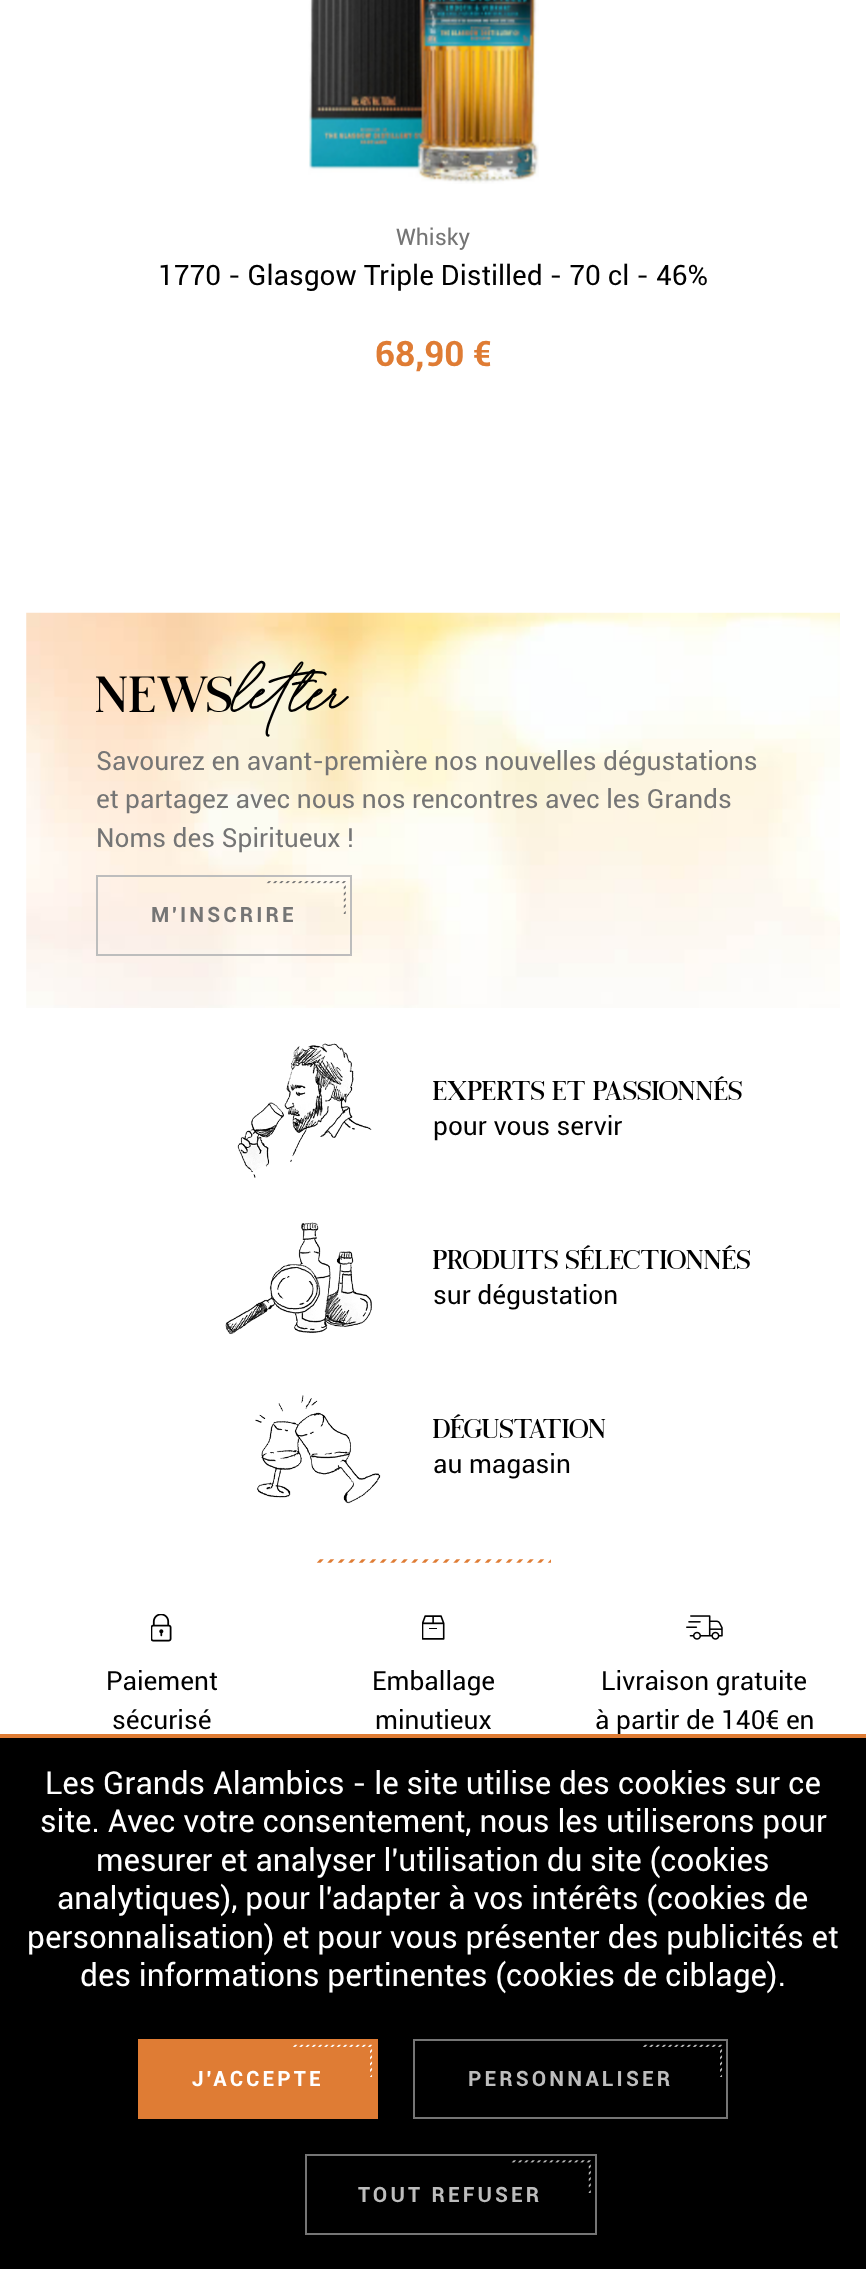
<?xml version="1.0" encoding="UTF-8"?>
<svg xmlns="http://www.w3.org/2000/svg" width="866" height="2269">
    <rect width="100%" height="100%" fill="#FFFFFF"/>
    <image x="308" y="0" width="231" height="184" href="img_01.png"/>
    <text x="396" y="245" font-family="Roboto" font-size="23" fill="#757575">Whisky</text>
    <text x="158" y="285" font-family="Roboto" font-size="28" fill="#000000">1770 - Glasgow Triple Distilled - 70 cl - 46%</text>
    <text x="375" y="366" font-family="Roboto" font-size="35" font-weight="700" fill="#DF7C34">68,90 €</text>
    <image x="26" y="612" width="814" height="396" href="img_02.png"/>
    <text x="96" y="712" font-family="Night" font-size="52.5" fill="#000000">NEWS</text>
    <text x="234" y="712" font-family="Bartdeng" font-size="70" fill="#000000">letter</text>
    <text font-family="Roboto" font-size="26.25" fill="#757575">
        <tspan x="96" y="770">Savourez en avant-première nos nouvelles dégustations</tspan>
        <tspan x="96" y="808">et partagez avec nous nos rencontres avec les Grands</tspan>
        <tspan x="96" y="847">Noms des Spiritueux !</tspan>
    </text>
    <rect x="97" y="876" width="254" height="79" fill="none" stroke="#BDBDBD" stroke-width="2"/>
    <text x="151" y="922" font-family="Roboto" font-size="21" font-weight="700" letter-spacing="3.1" fill="#757575">M'INSCRIRE</text>
    <image x="266" y="881" width="80" height="33" href="img_03.png"/>
    <image x="237" y="1043" width="135" height="135" href="img_04.png"/>
    <text x="433" y="1100" font-family="Night" font-size="28" fill="#000000">EXPERTS ET PASSIONNÉS</text>
    <text x="433" y="1135" font-family="Roboto" font-size="26.25" fill="#000000">pour vous servir</text>
    <image x="225" y="1222" width="147" height="113" href="img_05.png"/>
    <text x="433" y="1269" font-family="Night" font-size="28" fill="#000000">PRODUITS SÉLECTIONNÉS</text>
    <text x="433" y="1304" font-family="Roboto" font-size="26.25" fill="#000000">sur dégustation</text>
    <image x="255" y="1395" width="126" height="109" href="img_06.png"/>
    <text x="433" y="1438" font-family="Night" font-size="28" fill="#000000">DÉGUSTATION</text>
    <text x="433" y="1473" font-family="Roboto" font-size="26.25" fill="#000000">au magasin</text>
    <image x="316" y="1559" width="235" height="4" href="img_07.png"/>
    <image x="151" y="1614" width="21" height="28" href="img_08.png"/>
    <text x="106" y="1690" font-family="Roboto" font-size="26.25" fill="#000000">Paiement</text>
    <text x="112" y="1729" font-family="Roboto" font-size="26.25" fill="#000000">sécurisé</text>
    <image x="422" y="1615" width="23" height="25" href="img_09.png"/>
    <text x="372" y="1690" font-family="Roboto" font-size="26.25" fill="#000000">Emballage</text>
    <text x="375" y="1729" font-family="Roboto" font-size="26.25" fill="#000000">minutieux</text>
    <image x="686" y="1615" width="37" height="25" href="img_10.png"/>
    <text x="601" y="1690" font-family="Roboto" font-size="26.25" fill="#000000">Livraison gratuite</text>
    <text x="595" y="1729" font-family="Roboto" font-size="26.25" fill="#000000">à partir de 140€ en</text>
    <rect x="0" y="1738" width="866" height="531" fill="#000000"/>
    <rect x="0" y="1734" width="866" height="4" fill="#DF7C34"/>
    <text x="45" y="1794" font-family="Roboto" font-size="31.5" fill="#FFFFFF">Les Grands Alambics - le site utilise des cookies sur ce</text>
    <text x="40" y="1832" font-family="Roboto" font-size="31.5" fill="#FFFFFF">site. Avec votre consentement, nous les utiliserons pour</text>
    <text x="96" y="1871" font-family="Roboto" font-size="31.5" fill="#FFFFFF">mesurer et analyser l'utilisation du site (cookies</text>
    <text x="57" y="1909" font-family="Roboto" font-size="31.5" fill="#FFFFFF">analytiques), pour l'adapter à vos intérêts (cookies de</text>
    <text x="27" y="1948" font-family="Roboto" font-size="31.5" fill="#FFFFFF">personnalisation) et pour vous présenter des publicités et</text>
    <text x="80" y="1986" font-family="Roboto" font-size="31.5" fill="#FFFFFF">des informations pertinentes (cookies de ciblage).</text>
    <rect x="138" y="2039" width="240" height="80" fill="#DF7C34"/>
    <text x="192" y="2086" font-family="Roboto" font-size="21" font-weight="700" letter-spacing="3.1" fill="#FFFFFF">J'ACCEPTE</text>
    <image x="293" y="2044" width="80" height="33" href="img_11.png"/>
    <rect x="414" y="2040" width="313" height="78" fill="none" stroke="#757575" stroke-width="2"/>
    <text x="468" y="2086" font-family="Roboto" font-size="21" font-weight="700" letter-spacing="3.1" fill="#BDBDBD">PERSONNALISER</text>
    <image x="643" y="2044" width="80" height="33" href="img_12.png"/>
    <rect x="306" y="2155" width="290" height="79" fill="none" stroke="#757575" stroke-width="2"/>
    <text x="358" y="2202" font-family="Roboto" font-size="21" font-weight="700" letter-spacing="3.1" fill="#BDBDBD">TOUT REFUSER</text>
    <image x="511" y="2160" width="80" height="33" href="img_13.png"/>
</svg>
